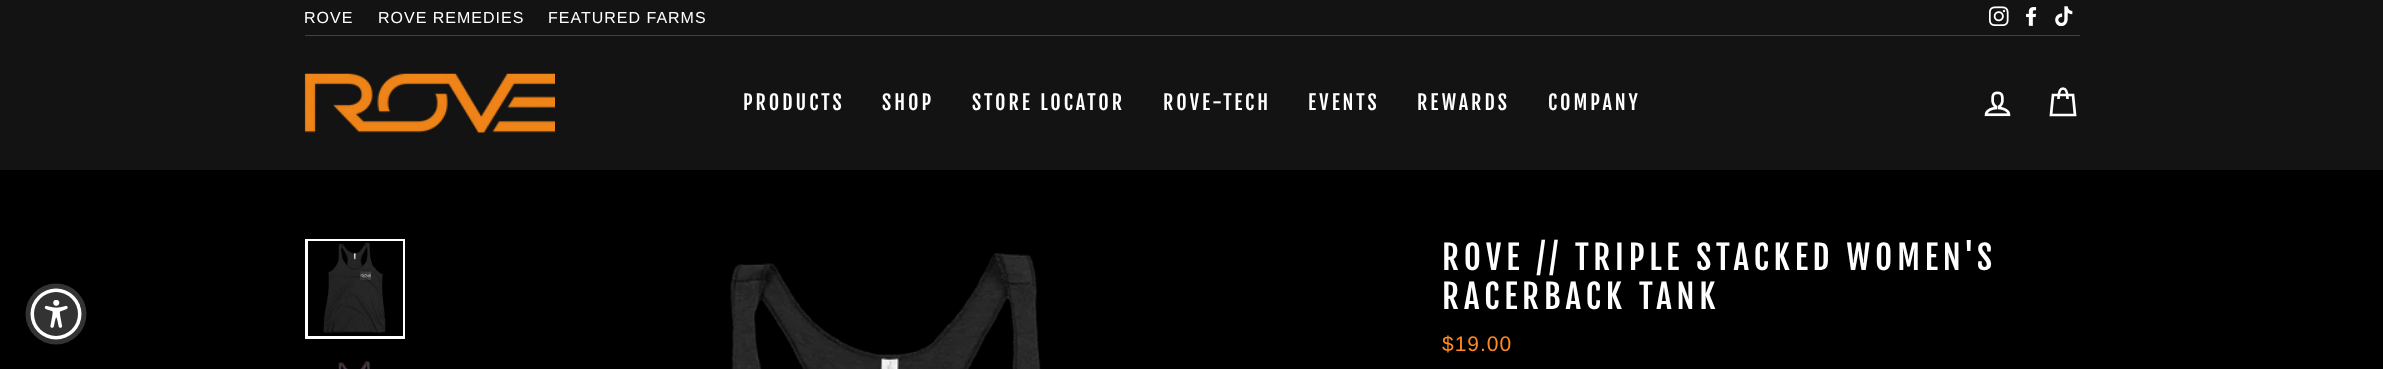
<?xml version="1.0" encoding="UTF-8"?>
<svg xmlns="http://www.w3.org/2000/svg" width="2383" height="369">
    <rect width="100%" height="100%" fill="#000000"/>
    <circle cx="56" cy="314" r="30.5" fill="#333333"/>
    <circle cx="56" cy="314" r="25.5" fill="#FFFFFF"/>
    <circle cx="56" cy="314" r="22" fill="#333333"/>
    <image x="44" y="300" width="24" height="28" href="img_01.png"/>
    <rect x="0" y="0" width="2383" height="170" fill="#131313"/>
    <rect x="305" y="35" width="1775" height="1" fill="#424242"/>
    <text x="304" y="23" font-family="Liberation Sans" font-size="16" letter-spacing="1" fill="#FFFFFF">ROVE</text>
    <text x="378" y="23" font-family="Liberation Sans" font-size="16" letter-spacing="1" fill="#FFFFFF">ROVE REMEDIES</text>
    <text x="548" y="23" font-family="Liberation Sans" font-size="16" letter-spacing="1" fill="#FFFFFF">FEATURED FARMS</text>
    <image x="1989" y="6" width="20" height="20" href="img_02.png"/>
    <image x="2026" y="7" width="11" height="19" href="img_03.png"/>
    <image x="2055" y="6" width="18" height="20" href="img_04.png"/>
    <image x="304" y="73" width="251" height="60" href="img_05.png"/>
    <text x="743" y="110" font-family="Fjalla One" font-size="20" letter-spacing="3" fill="#FFFFFF">PRODUCTS</text>
    <text x="882" y="110" font-family="Fjalla One" font-size="20" letter-spacing="3" fill="#FFFFFF">SHOP</text>
    <text x="972" y="110" font-family="Fjalla One" font-size="20" letter-spacing="3" fill="#FFFFFF">STORE LOCATOR</text>
    <text x="1163" y="110" font-family="Fjalla One" font-size="20" letter-spacing="3" fill="#FFFFFF">ROVE-TECH</text>
    <text x="1308" y="110" font-family="Fjalla One" font-size="20" letter-spacing="3" fill="#FFFFFF">EVENTS</text>
    <text x="1417" y="110" font-family="Fjalla One" font-size="20" letter-spacing="3" fill="#FFFFFF">REWARDS</text>
    <text x="1548" y="110" font-family="Fjalla One" font-size="20" letter-spacing="3" fill="#FFFFFF">COMPANY</text>
    <image x="1984" y="91" width="27" height="26" href="img_06.png"/>
    <path d="M 2058.5 99 C 2058.5 90.5 2060.5 88.5 2063 88.5 C 2065.5 88.5 2067.5 90.5 2067.5 99 M 2053 95 H 2073 L 2075 115 H 2051 Z" fill="none" stroke="#FFFFFF" stroke-width="2.7"/>
    <rect x="306.5" y="240.5" width="97" height="97" fill="none" stroke="#FFFFFF" stroke-width="3"/>
    <rect x="308" y="241" width="95" height="95" fill="#000000"/>
    <image x="323" y="242" width="63" height="91" href="img_07.png"/>
    <image x="338" y="361" width="32" height="8" href="img_08.png"/>
    <image x="730" y="253" width="311" height="116" href="img_09.png"/>
    <text font-family="Fjalla One" font-size="32.9" letter-spacing="4.95" fill="#FFFFFF">
        <tspan x="1442" y="270">ROVE // TRIPLE STACKED WOMEN'S</tspan>
        <tspan x="1442" y="309">RACERBACK TANK</tspan>
    </text>
    <text x="1442" y="351" font-family="Liberation Sans" font-size="21" letter-spacing="1" fill="#FF8A23">$19.00</text>
</svg>
